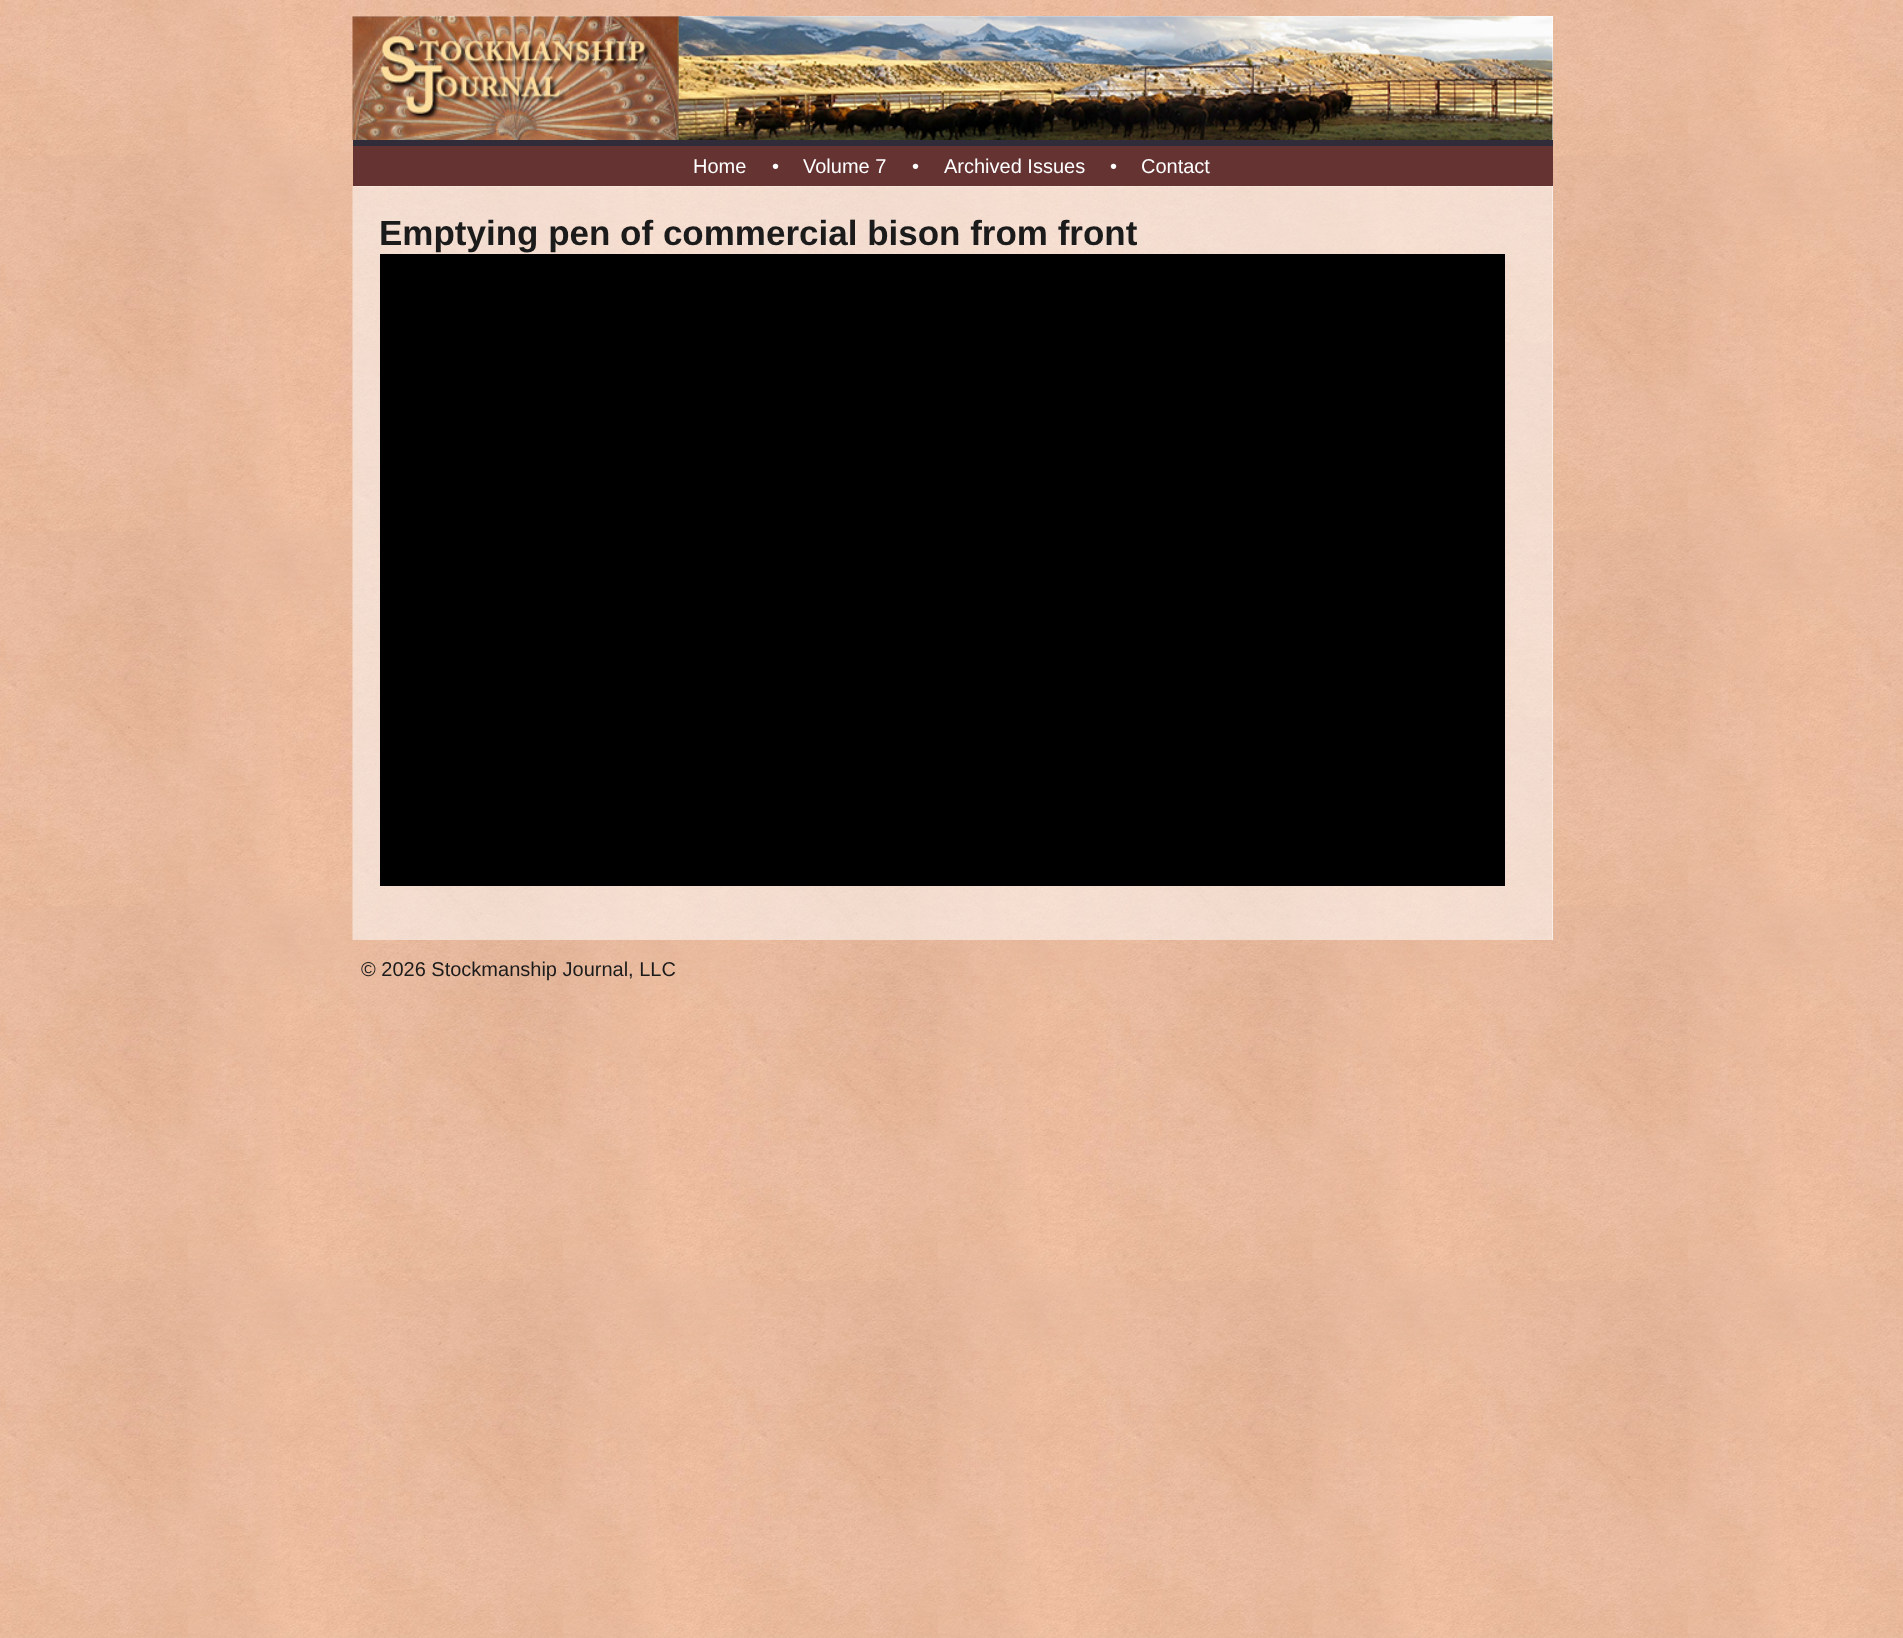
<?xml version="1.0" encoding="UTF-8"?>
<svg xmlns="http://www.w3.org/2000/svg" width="1903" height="1638">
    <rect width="100%" height="100%" fill="#FFFFFF"/>
    <image x="0" y="0" width="1903" height="1638" href="img_01.png"/>
    <rect x="353" y="16" width="1200" height="124" fill="#FFFFFF"/>
    <image x="352" y="16" width="1201" height="124" href="img_02.png"/>
    <rect x="353" y="146" width="1200" height="40" fill="#663333"/>
    <rect x="353" y="140" width="1200" height="6" fill="#302C3A"/>
    <text x="693" y="173" font-family="Liberation Sans" font-size="20" fill="#FFFFFF">Home</text>
    <text x="772" y="173" font-family="Liberation Sans" font-size="20" fill="#FFFFFF">•</text>
    <text x="803" y="173" font-family="Liberation Sans" font-size="20" fill="#FFFFFF">Volume 7</text>
    <text x="912" y="173" font-family="Liberation Sans" font-size="20" fill="#FFFFFF">•</text>
    <text x="944" y="173" font-family="Liberation Sans" font-size="20" fill="#FFFFFF">Archived Issues</text>
    <text x="1110" y="173" font-family="Liberation Sans" font-size="20" fill="#FFFFFF">•</text>
    <text x="1141" y="173" font-family="Liberation Sans" font-size="20" fill="#FFFFFF">Contact</text>
    <rect x="353" y="186" width="1200" height="754" fill="#FFFFFF"/>
    <image x="352" y="186" width="1201" height="754" href="img_03.png"/>
    <text x="379" y="245" font-family="Liberation Sans" font-size="35" font-weight="700" fill="#1B1B1B">Emptying pen of commercial bison from front</text>
    <rect x="380" y="254" width="1125" height="632" fill="#000000"/>
    <text x="361" y="976" font-family="Liberation Sans" font-size="20" fill="#1B1B1B">© 2026 Stockmanship Journal, LLC</text>
</svg>
